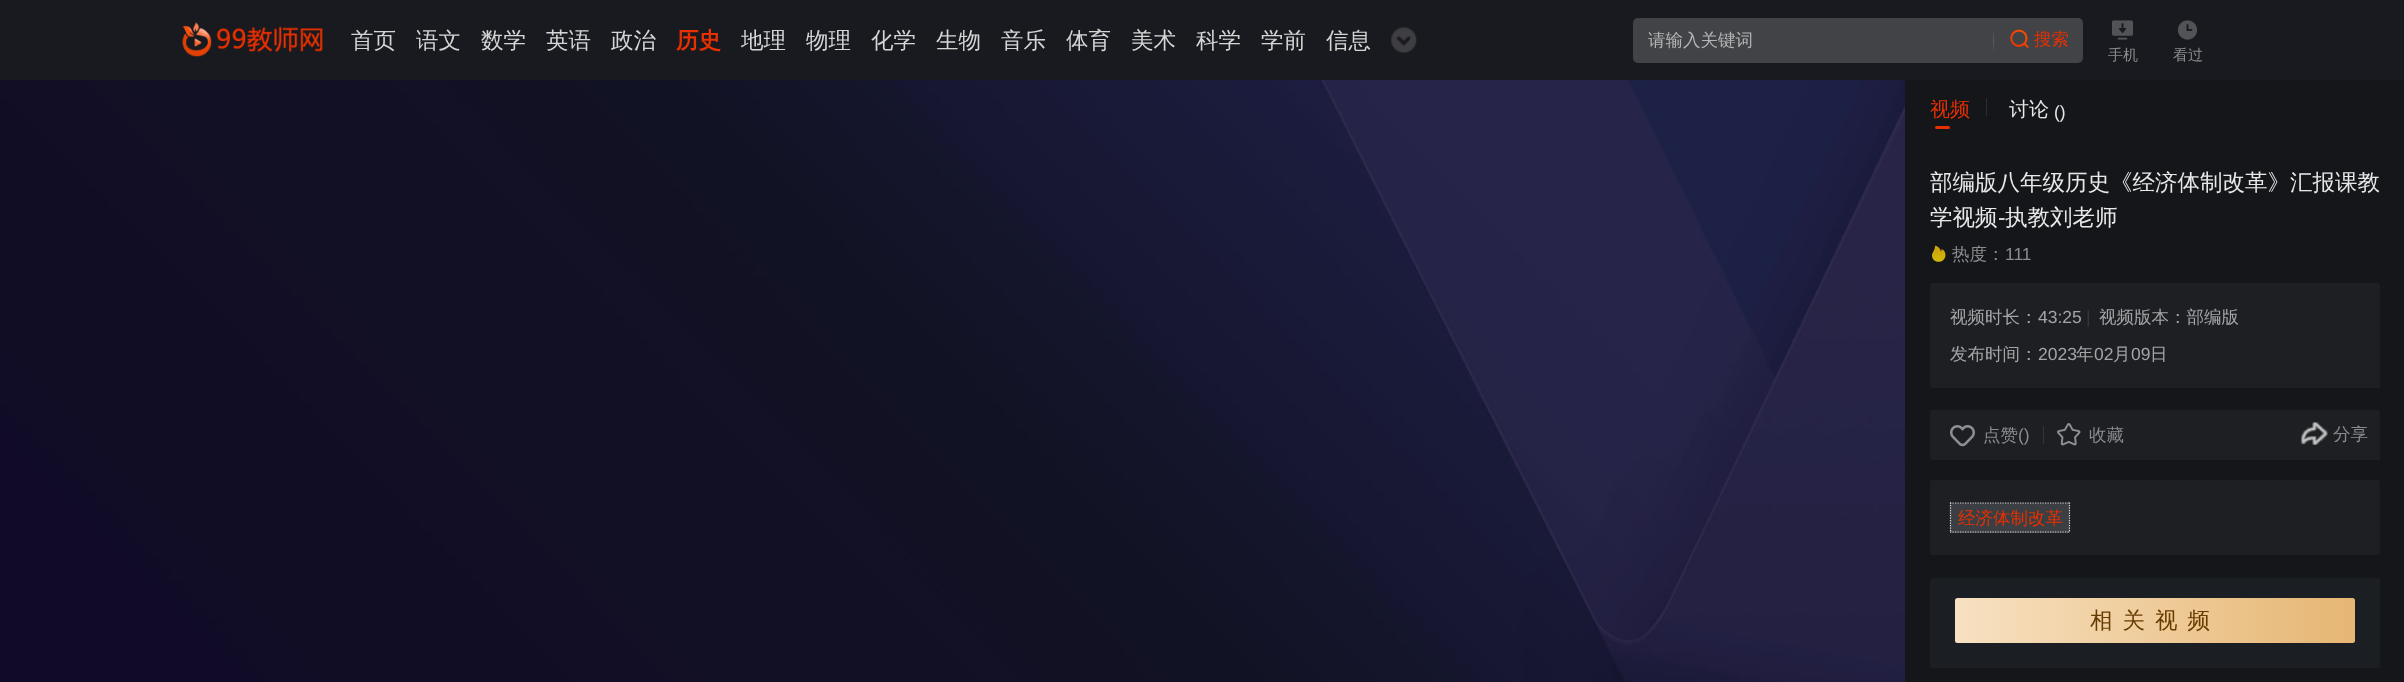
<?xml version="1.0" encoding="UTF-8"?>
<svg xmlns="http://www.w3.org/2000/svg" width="2404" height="682">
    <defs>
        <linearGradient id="g1" gradientUnits="userSpaceOnUse" x1="1993" y1="28" x2="1993" y2="53"><stop offset="0" stop-color="#424347"/><stop offset="0.51" stop-color="#5C5C60"/><stop offset="1" stop-color="#424347"/></linearGradient>
        <linearGradient id="g2" gradientUnits="userSpaceOnUse" x1="1955" y1="620" x2="2355" y2="620"><stop offset="0" stop-color="#F7E1C1"/><stop offset="1" stop-color="#E6B673"/></linearGradient>
    </defs>
    <rect width="100%" height="100%" fill="#14161A"/>
    <rect x="0" y="0" width="2404" height="80" fill="#191A1F"/>
    <image x="182" y="22" width="141" height="35" href="img_01.png"/>
    <text x="351" y="48" font-family="WenQuanYi Zen Hei" font-size="22.5" font-weight="500" fill="#D4D5D5">首页</text>
    <text x="416" y="48" font-family="WenQuanYi Zen Hei" font-size="22.5" font-weight="500" fill="#D4D5D5">语文</text>
    <text x="481" y="48" font-family="WenQuanYi Zen Hei" font-size="22.5" font-weight="500" fill="#D4D5D5">数学</text>
    <text x="546" y="48" font-family="WenQuanYi Zen Hei" font-size="22.5" font-weight="500" fill="#D4D5D5">英语</text>
    <text x="611" y="48" font-family="WenQuanYi Zen Hei" font-size="22.5" font-weight="500" fill="#D4D5D5">政治</text>
    <text x="676" y="48" font-family="WenQuanYi Zen Hei" font-size="22.5" font-weight="700" fill="#E83000">历史</text>
    <text x="741" y="48" font-family="WenQuanYi Zen Hei" font-size="22.5" font-weight="500" fill="#D4D5D5">地理</text>
    <text x="806" y="48" font-family="WenQuanYi Zen Hei" font-size="22.5" font-weight="500" fill="#D4D5D5">物理</text>
    <text x="871" y="48" font-family="WenQuanYi Zen Hei" font-size="22.5" font-weight="500" fill="#D4D5D5">化学</text>
    <text x="936" y="48" font-family="WenQuanYi Zen Hei" font-size="22.5" font-weight="500" fill="#D4D5D5">生物</text>
    <text x="1001" y="48" font-family="WenQuanYi Zen Hei" font-size="22.5" font-weight="500" fill="#D4D5D5">音乐</text>
    <text x="1066" y="48" font-family="WenQuanYi Zen Hei" font-size="22.5" font-weight="500" fill="#D4D5D5">体育</text>
    <text x="1131" y="48" font-family="WenQuanYi Zen Hei" font-size="22.5" font-weight="500" fill="#D4D5D5">美术</text>
    <text x="1196" y="48" font-family="WenQuanYi Zen Hei" font-size="22.5" font-weight="500" fill="#D4D5D5">科学</text>
    <text x="1261" y="48" font-family="WenQuanYi Zen Hei" font-size="22.5" font-weight="500" fill="#D4D5D5">学前</text>
    <text x="1326" y="48" font-family="WenQuanYi Zen Hei" font-size="22.5" font-weight="500" fill="#D4D5D5">信息</text>
    <image x="1391" y="27" width="26" height="26" href="img_02.png"/>
    <rect x="1633" y="18" width="450" height="45" rx="5" fill="#424347"/>
    <text x="1648" y="46" font-family="WenQuanYi Zen Hei" font-size="17.5" font-weight="500" fill="#B3B4B5">请输入关键词</text>
    <rect x="1993" y="28" width="1" height="25" fill="url(#g1)"/>
    <image x="2010" y="29" width="19" height="19" href="img_03.png"/>
    <text x="2034" y="45" font-family="WenQuanYi Zen Hei" font-size="17.5" font-weight="500" fill="#E83000">搜索</text>
    <image x="2112" y="20" width="21" height="20" href="img_04.png"/>
    <text x="2108" y="60" font-family="WenQuanYi Zen Hei" font-size="15" font-weight="500" fill="#8A8B8D">手机</text>
    <image x="2178" y="20" width="19" height="20" href="img_05.png"/>
    <text x="2173" y="60" font-family="WenQuanYi Zen Hei" font-size="15" font-weight="500" fill="#8A8B8D">看过</text>
    <image x="0" y="80" width="1905" height="602" href="img_06.png"/>
    <text x="1930" y="116" font-family="WenQuanYi Zen Hei" font-size="20" font-weight="500" fill="#E83000">视频</text>
    <rect x="1986" y="98" width="1" height="18" fill="#2C2D31"/>
    <rect x="1935" y="126" width="15" height="3" rx="1.5" fill="#E83000"/>
    <text x="2009" y="116" font-family="WenQuanYi Zen Hei" font-size="20" font-weight="500" fill="#E8E8E8">讨论</text>
    <text x="2054" y="118" font-family="Liberation Sans" font-size="17.5" fill="#E8E8E8">()</text>
    <text font-family="WenQuanYi Zen Hei" font-size="22.5" font-weight="500" fill="#E8E8E8">
        <tspan x="1930" y="190">部编版八年级历史《经济体制改革》汇报课教</tspan>
        <tspan x="1930" y="225">学视频</tspan>
    </text>
    <text x="1998" y="225" font-family="Liberation Sans" font-size="22.5" fill="#E8E8E8">-</text>
    <text x="2005" y="225" font-family="WenQuanYi Zen Hei" font-size="22.5" font-weight="500" fill="#E8E8E8">执教刘老师</text>
    <image x="1932" y="245" width="14" height="17" href="img_07.png"/>
    <text x="1952" y="260" font-family="WenQuanYi Zen Hei" font-size="17.5" font-weight="500" fill="#8A8B8D">热度：</text>
    <text x="2005" y="260" font-family="Liberation Sans" font-size="17.5" fill="#8A8B8D">111</text>
    <rect x="1930" y="283" width="450" height="105" rx="2.5" fill="#1D1F23"/>
    <text x="1950" y="323" font-family="WenQuanYi Zen Hei" font-size="17.5" font-weight="500" fill="#A5A5A7">视频时长：</text>
    <text x="2038" y="323" font-family="Liberation Sans" font-size="17.5" fill="#A5A5A7">43:25</text>
    <text x="2086" y="323" font-family="Liberation Sans" font-size="17.5" fill="#343539">|</text>
    <text x="2099" y="323" font-family="WenQuanYi Zen Hei" font-size="17.5" font-weight="500" fill="#A5A5A7">视频版本：部编版</text>
    <text x="1950" y="360" font-family="WenQuanYi Zen Hei" font-size="17.5" font-weight="500" fill="#A5A5A7">发布时间：</text>
    <text x="2038" y="360" font-family="Liberation Sans" font-size="17.5" fill="#A5A5A7">2023</text>
    <text x="2076" y="360" font-family="WenQuanYi Zen Hei" font-size="17.5" font-weight="500" fill="#A5A5A7">年</text>
    <text x="2094" y="360" font-family="Liberation Sans" font-size="17.5" fill="#A5A5A7">02</text>
    <text x="2113" y="360" font-family="WenQuanYi Zen Hei" font-size="17.5" font-weight="500" fill="#A5A5A7">月</text>
    <text x="2131" y="360" font-family="Liberation Sans" font-size="17.5" fill="#A5A5A7">09</text>
    <text x="2150" y="360" font-family="WenQuanYi Zen Hei" font-size="17.5" font-weight="500" fill="#A5A5A7">日</text>
    <rect x="1930" y="410" width="450" height="50" rx="2.5" fill="#1D1F23"/>
    <image x="1950" y="425" width="25" height="22" href="img_08.png"/>
    <text x="1983" y="441" font-family="WenQuanYi Zen Hei" font-size="17.5" font-weight="500" fill="#8A8B8D">点赞</text>
    <text x="2018" y="441" font-family="Liberation Sans" font-size="17.5" fill="#8A8B8D">()</text>
    <rect x="2043" y="426" width="1" height="18" fill="#343539"/>
    <image x="2057" y="423" width="24" height="23" href="img_09.png"/>
    <text x="2089" y="441" font-family="WenQuanYi Zen Hei" font-size="17.5" font-weight="500" fill="#8A8B8D">收藏</text>
    <image x="2301" y="422" width="27" height="23" href="img_10.png"/>
    <text x="2333" y="440" font-family="WenQuanYi Zen Hei" font-size="17.5" font-weight="500" fill="#8A8B8D">分享</text>
    <rect x="1930" y="480" width="450" height="75" rx="2.5" fill="#1D1F23"/>
    <rect x="1950" y="503" width="120" height="30" fill="#3B3E43"/>
    <text x="1958" y="524" font-family="WenQuanYi Zen Hei" font-size="17.5" font-weight="500" fill="#E83000">经济体制改革</text>
    <path d="M 1950 503 H 2070" fill="none" stroke="#DCDCDC" stroke-width="1.2" stroke-dasharray="1.25 1.25"/>
    <path d="M 2069.5 502.5 V 532.5" fill="none" stroke="#DCDCDC" stroke-width="1.2" stroke-dasharray="1.25 1.25"/>
    <path d="M 1950 532 H 2070" fill="none" stroke="#DCDCDC" stroke-width="1.2" stroke-dasharray="1.25 1.25"/>
    <path d="M 1950.5 502.5 V 532.5" fill="none" stroke="#DCDCDC" stroke-width="1.2" stroke-dasharray="1.25 1.25"/>
    <rect x="1930" y="578" width="450" height="90" rx="2.5" fill="#1B1E22"/>
    <rect x="1955" y="598" width="400" height="45" rx="2.5" fill="url(#g2)"/>
    <text x="2090" y="628" font-family="WenQuanYi Zen Hei" font-size="22.5" font-weight="500" letter-spacing="10" fill="#663C00">相关视频</text>
</svg>
